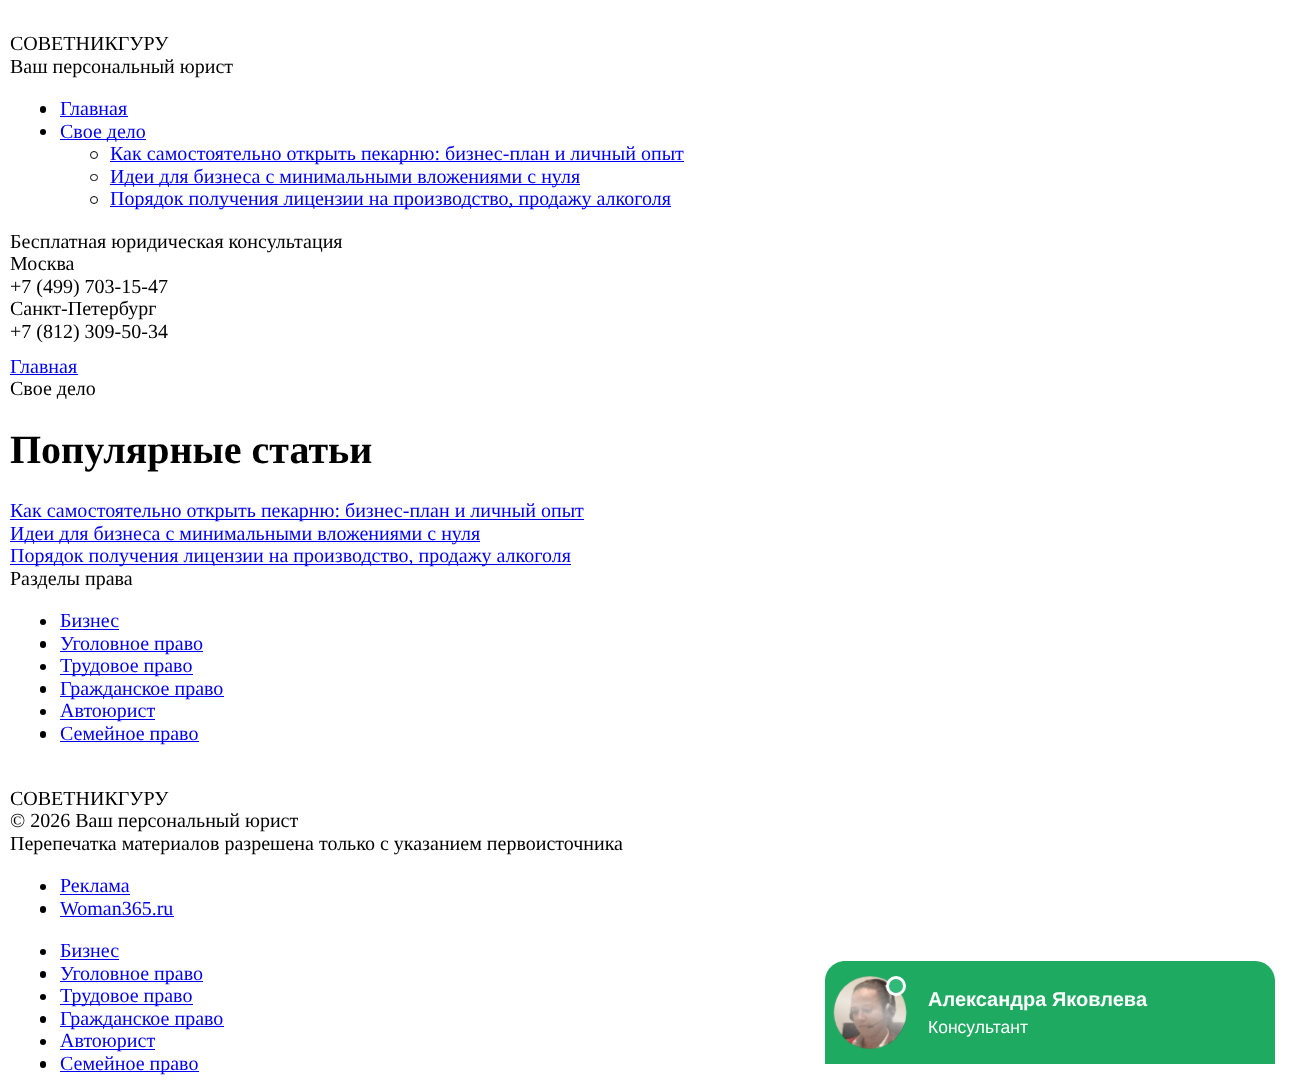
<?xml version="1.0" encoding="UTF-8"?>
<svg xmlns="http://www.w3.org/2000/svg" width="1295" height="1083">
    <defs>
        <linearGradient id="g1" gradientUnits="userSpaceOnUse" x1="882" y1="983" x2="858" y2="1051"><stop offset="0" stop-color="#FFFFFF" stop-opacity="0"/><stop offset="0.4" stop-color="#FFFFFF" stop-opacity="0.6"/><stop offset="0.6" stop-color="#FFFFFF" stop-opacity="0.36"/><stop offset="1" stop-color="#FFFFFF" stop-opacity="0"/></linearGradient>
    </defs>
    <rect width="100%" height="100%" fill="#FFFFFF"/>
    <text font-family="Liberation Serif" font-size="20" fill="#000000">
        <tspan x="10" y="50">СОВЕТНИКГУРУ</tspan>
        <tspan x="10" y="73">Ваш персональный юрист</tspan>
    </text>
    <rect x="40" y="106" width="6" height="7" rx="3" fill="#000000"/>
    <text x="60" y="115" font-family="Liberation Serif" font-size="20" fill="#0000EE">Главная</text>
    <rect x="60" y="116" width="68" height="1" fill="#0000EE"/>
    <circle cx="43" cy="132" r="3" fill="#000000"/>
    <rect x="60" y="139" width="86" height="1" fill="#0000EE"/>
    <text x="60" y="138" font-family="Liberation Serif" font-size="20" fill="#0000EE">Свое дело</text>
    <circle cx="94" cy="155" r="3.5" fill="none" stroke="#000000"/>
    <rect x="110" y="161" width="574" height="1" fill="#0000EE"/>
    <text x="110" y="160" font-family="Liberation Serif" font-size="20" fill="#0000EE">Как самостоятельно открыть пекарню: бизнес-план и личный опыт</text>
    <rect x="90.5" y="174.5" width="7" height="6" rx="3" fill="none" stroke="#000000"/>
    <rect x="110" y="184" width="470" height="1" fill="#0000EE"/>
    <text x="110" y="183" font-family="Liberation Serif" font-size="20" fill="#0000EE">Идеи для бизнеса с минимальными вложениями с нуля</text>
    <circle cx="94" cy="200" r="3.5" fill="none" stroke="#000000"/>
    <rect x="110" y="206" width="561" height="1" fill="#0000EE"/>
    <text x="110" y="205" font-family="Liberation Serif" font-size="20" fill="#0000EE">Порядок получения лицензии на производство, продажу алкоголя</text>
    <text font-family="Liberation Serif" font-size="20" fill="#000000">
        <tspan x="10" y="248">Бесплатная юридическая консультация</tspan>
        <tspan x="10" y="270">Москва</tspan>
        <tspan x="10" y="293">+7 (499) 703-15-47</tspan>
        <tspan x="10" y="315">Санкт-Петербург</tspan>
        <tspan x="10" y="338">+7 (812) 309-50-34</tspan>
    </text>
    <text x="10" y="373" font-family="Liberation Serif" font-size="20" fill="#0000EE">Главная</text>
    <rect x="10" y="374" width="68" height="1" fill="#0000EE"/>
    <text x="10" y="395" font-family="Liberation Serif" font-size="20" fill="#000000">Свое дело</text>
    <text x="10" y="463" font-family="Liberation Serif" font-size="40" font-weight="700" fill="#000000">Популярные статьи</text>
    <rect x="10" y="519" width="574" height="1" fill="#0000EE"/>
    <text x="10" y="517" font-family="Liberation Serif" font-size="20" fill="#0000EE">Как самостоятельно открыть пекарню: бизнес-план и личный опыт</text>
    <rect x="10" y="541" width="470" height="1" fill="#0000EE"/>
    <text x="10" y="540" font-family="Liberation Serif" font-size="20" fill="#0000EE">Идеи для бизнеса с минимальными вложениями с нуля</text>
    <rect x="10" y="564" width="561" height="1" fill="#0000EE"/>
    <text x="10" y="562" font-family="Liberation Serif" font-size="20" fill="#0000EE">Порядок получения лицензии на производство, продажу алкоголя</text>
    <text x="10" y="585" font-family="Liberation Serif" font-size="20" fill="#000000">Разделы права</text>
    <circle cx="43" cy="622" r="3" fill="#000000"/>
    <text x="60" y="627" font-family="Liberation Serif" font-size="20" fill="#0000EE">Бизнес</text>
    <rect x="60" y="629" width="59" height="1" fill="#0000EE"/>
    <rect x="40" y="641" width="6" height="7" rx="3" fill="#000000"/>
    <rect x="60" y="651" width="143" height="1" fill="#0000EE"/>
    <text x="60" y="650" font-family="Liberation Serif" font-size="20" fill="#0000EE">Уголовное право</text>
    <circle cx="43" cy="667" r="3" fill="#000000"/>
    <rect x="60" y="674" width="133" height="1" fill="#0000EE"/>
    <text x="60" y="672" font-family="Liberation Serif" font-size="20" fill="#0000EE">Трудовое право</text>
    <rect x="40" y="686" width="6" height="7" rx="3" fill="#000000"/>
    <rect x="60" y="696" width="164" height="1" fill="#0000EE"/>
    <text x="60" y="695" font-family="Liberation Serif" font-size="20" fill="#0000EE">Гражданское право</text>
    <circle cx="43" cy="712" r="3" fill="#000000"/>
    <rect x="60" y="719" width="95" height="1" fill="#0000EE"/>
    <text x="60" y="717" font-family="Liberation Serif" font-size="20" fill="#0000EE">Автоюрист</text>
    <rect x="40" y="731" width="6" height="7" rx="3" fill="#000000"/>
    <rect x="60" y="741" width="139" height="1" fill="#0000EE"/>
    <text x="60" y="740" font-family="Liberation Serif" font-size="20" fill="#0000EE">Семейное право</text>
    <text font-family="Liberation Serif" font-size="20" fill="#000000">
        <tspan x="10" y="805">СОВЕТНИКГУРУ</tspan>
        <tspan x="10" y="827">© 2026 Ваш персональный юрист</tspan>
        <tspan x="10" y="850">Перепечатка материалов разрешена только с указанием первоисточника</tspan>
    </text>
    <circle cx="43" cy="887" r="3" fill="#000000"/>
    <text x="60" y="892" font-family="Liberation Serif" font-size="20" fill="#0000EE">Реклама</text>
    <rect x="60" y="894" width="70" height="1" fill="#0000EE"/>
    <rect x="40" y="906" width="6" height="7" rx="3" fill="#000000"/>
    <text x="60" y="915" font-family="Liberation Serif" font-size="20" fill="#0000EE">Woman365.ru</text>
    <rect x="60" y="916" width="114" height="1" fill="#0000EE"/>
    <circle cx="43" cy="952" r="3" fill="#000000"/>
    <text x="60" y="957" font-family="Liberation Serif" font-size="20" fill="#0000EE">Бизнес</text>
    <rect x="60" y="959" width="59" height="1" fill="#0000EE"/>
    <rect x="40" y="971" width="6" height="7" rx="3" fill="#000000"/>
    <rect x="60" y="981" width="143" height="1" fill="#0000EE"/>
    <text x="60" y="980" font-family="Liberation Serif" font-size="20" fill="#0000EE">Уголовное право</text>
    <circle cx="43" cy="997" r="3" fill="#000000"/>
    <rect x="60" y="1004" width="133" height="1" fill="#0000EE"/>
    <text x="60" y="1002" font-family="Liberation Serif" font-size="20" fill="#0000EE">Трудовое право</text>
    <rect x="40" y="1016" width="6" height="7" rx="3" fill="#000000"/>
    <rect x="60" y="1026" width="164" height="1" fill="#0000EE"/>
    <text x="60" y="1025" font-family="Liberation Serif" font-size="20" fill="#0000EE">Гражданское право</text>
    <circle cx="43" cy="1042" r="3" fill="#000000"/>
    <rect x="60" y="1049" width="95" height="1" fill="#0000EE"/>
    <text x="60" y="1047" font-family="Liberation Serif" font-size="20" fill="#0000EE">Автоюрист</text>
    <rect x="40" y="1061" width="6" height="7" rx="3" fill="#000000"/>
    <rect x="60" y="1071" width="139" height="1" fill="#0000EE"/>
    <text x="60" y="1070" font-family="Liberation Serif" font-size="20" fill="#0000EE">Семейное право</text>
    <path d="M 845 961 H 1255 C 1266 961 1275 970 1275 981 V 1064 H 825 V 981 C 825 970 834 961 845 961 Z" fill="#1EAA61"/>
    <rect x="834" y="976" width="72" height="73" rx="36" fill="#178049"/>
    <image x="833" y="976" width="74" height="74" href="img_01.png"/>
    <path d="M 866 976 L 897 988 L 902 996 C 919 1028 882 1064 850 1043 C 842 1038 837 1029 835 1020 C 831 1000 844 979 866 976 Z" fill="url(#g1)"/>
    <circle cx="896" cy="986" r="8.5" fill="#31B978" stroke="#FFFFFF" stroke-width="3"/>
    <text x="928" y="1006" font-family="Liberation Sans" font-size="20" font-weight="700" fill="#FFFFFF">Александра Яковлева</text>
    <text x="928" y="1033" font-family="Liberation Sans" font-size="17.5" fill="#FFFFFF">Консультант</text>
</svg>
